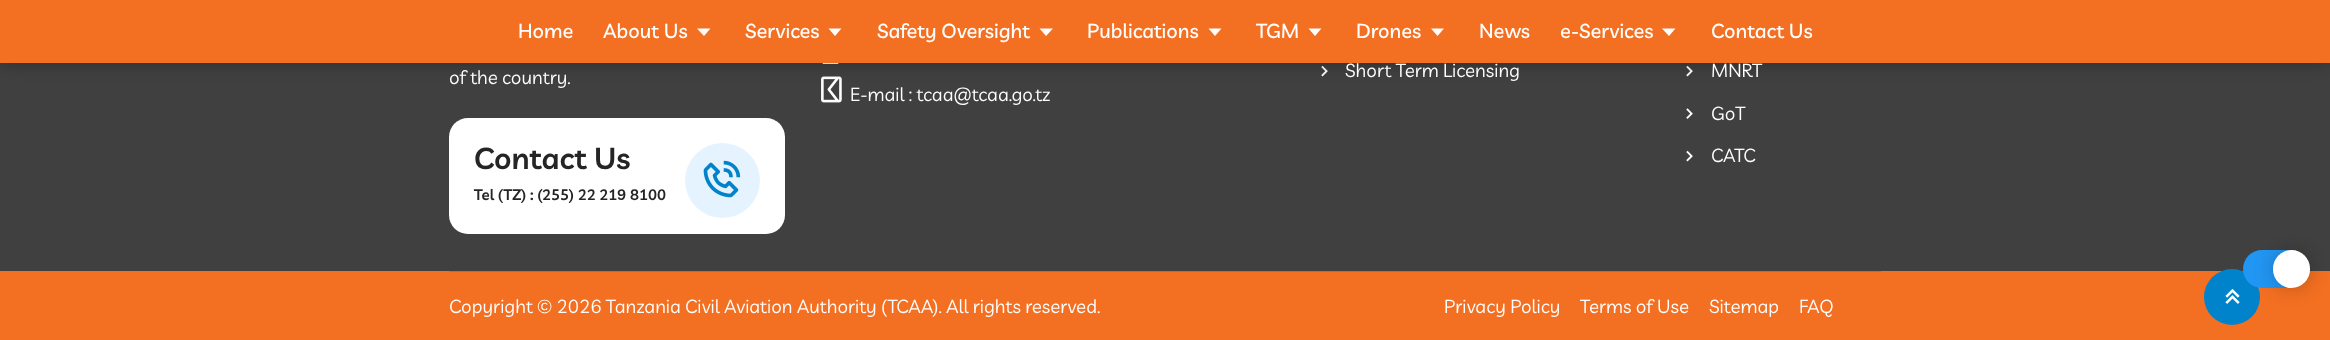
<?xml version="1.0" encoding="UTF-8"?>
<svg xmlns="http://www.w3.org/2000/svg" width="2330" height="340">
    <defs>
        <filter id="blur1" x="-50%" y="-200%" width="200%" height="500%"><feGaussianBlur stdDeviation="9.5"/></filter>
    </defs>
    <rect width="100%" height="100%" fill="#404040"/>
    <image x="822" y="63" width="17" height="1" href="img_02.png"/>
    <image x="821" y="76" width="21" height="27" href="img_03.png"/>
    <image x="1321" y="65" width="7" height="12" href="img_04.png"/>
    <image x="1686" y="65" width="7" height="12" href="img_04.png"/>
    <rect x="0" y="0" width="2330" height="63" fill="#000000" fill-opacity="0.3" filter="url(#blur1)"/>
    <rect x="0" y="0" width="2330" height="63" fill="#F36F21"/>
    <text x="518" y="38" font-family="Livvic" font-size="20" font-weight="500" fill="#FFFFFF">Home</text>
    <text x="603" y="38" font-family="Livvic" font-size="20" font-weight="500" fill="#FFFFFF">About Us</text>
    <path d="M 704 36 L 710.5 28.5 H 697 Z" fill="#FFFFFF"/>
    <text x="745" y="38" font-family="Livvic" font-size="20" font-weight="500" fill="#FFFFFF">Services</text>
    <path d="M 835 36 L 841.5 28.5 H 828.5 Z" fill="#FFFFFF"/>
    <text x="877" y="38" font-family="Livvic" font-size="20" font-weight="500" fill="#FFFFFF">Safety Oversight</text>
    <path d="M 1046 36 L 1053 28.5 H 1039.5 Z" fill="#FFFFFF"/>
    <text x="1087" y="38" font-family="Livvic" font-size="20" font-weight="500" fill="#FFFFFF">Publications</text>
    <path d="M 1215 36 L 1221.5 28.5 H 1208.5 Z" fill="#FFFFFF"/>
    <text x="1256" y="38" font-family="Livvic" font-size="20" font-weight="500" fill="#FFFFFF">TGM</text>
    <path d="M 1315 36 L 1321.5 28.5 H 1308.5 Z" fill="#FFFFFF"/>
    <text x="1356" y="38" font-family="Livvic" font-size="20" font-weight="500" fill="#FFFFFF">Drones</text>
    <path d="M 1437.5 36 L 1444 28.5 H 1431 Z" fill="#FFFFFF"/>
    <text x="1479" y="38" font-family="Livvic" font-size="20" font-weight="500" fill="#FFFFFF">News</text>
    <text x="1560" y="38" font-family="Livvic" font-size="20" font-weight="500" fill="#FFFFFF">e-Services</text>
    <path d="M 1669 36 L 1675.5 28.5 H 1662 Z" fill="#FFFFFF"/>
    <text x="1711" y="38" font-family="Livvic" font-size="20" font-weight="500" fill="#FFFFFF">Contact Us</text>
    <text x="449" y="84" font-family="Livvic" font-size="18.75" fill="#FFFFFF">of the country.</text>
    <rect x="449" y="118" width="336" height="116" rx="19" fill="#FFFFFF"/>
    <text x="474" y="169" font-family="Livvic" font-size="30" font-weight="600" fill="#252525">Contact Us</text>
    <circle cx="722.5" cy="180.5" r="37.5" fill="#E5F3FF"/>
    <image x="703" y="160" width="38" height="38" href="img_01.png"/>
    <text x="474" y="200" font-family="Livvic" font-size="15" font-weight="600" fill="#252525">Tel (TZ) : (255) 22 219 8100</text>
    <text x="850" y="101" font-family="Livvic" font-size="18.75" fill="#FFFFFF">E-mail : tcaa@tcaa.go.tz</text>
    <text x="1345" y="77" font-family="Livvic" font-size="18.75" fill="#FFFFFF">Short Term Licensing</text>
    <text x="1711" y="77" font-family="Livvic" font-size="18.75" fill="#FFFFFF">MNRT</text>
    <image x="1686" y="108" width="7" height="11" href="img_05.png"/>
    <text x="1711" y="120" font-family="Livvic" font-size="18.75" fill="#FFFFFF">GoT</text>
    <image x="1686" y="150" width="7" height="12" href="img_04.png"/>
    <text x="1711" y="162" font-family="Livvic" font-size="18.75" fill="#FFFFFF">CATC</text>
    <rect x="0" y="271" width="2330" height="69" fill="#F36F21"/>
    <rect x="449" y="271" width="1432" height="1" fill="#977761"/>
    <text x="449" y="313" font-family="Livvic" font-size="18.75" fill="#FFFFFF">Copyright © 2026 Tanzania Civil Aviation Authority (TCAA). All rights reserved.</text>
    <text x="1444" y="313" font-family="Livvic" font-size="18.75" fill="#FFFFFF">Privacy Policy</text>
    <text x="1580" y="313" font-family="Livvic" font-size="18.75" fill="#FFFFFF">Terms of Use</text>
    <text x="1709" y="313" font-family="Livvic" font-size="18.75" fill="#FFFFFF">Sitemap</text>
    <text x="1799" y="313" font-family="Livvic" font-size="18.75" fill="#FFFFFF">FAQ</text>
    <circle cx="2232" cy="297" r="28" fill="#0083CA"/>
    <image x="2225" y="288" width="15" height="16" href="img_06.png"/>
    <rect x="2243" y="250" width="62" height="38" rx="19" fill="#2196F3"/>
    <rect x="2273" y="250" width="37" height="38" rx="18.5" fill="#202020" fill-opacity="0.24" filter="url(#blur1)"/>
    <rect x="2273" y="250" width="37" height="38" rx="18.5" fill="#FFFFFF"/>
</svg>
